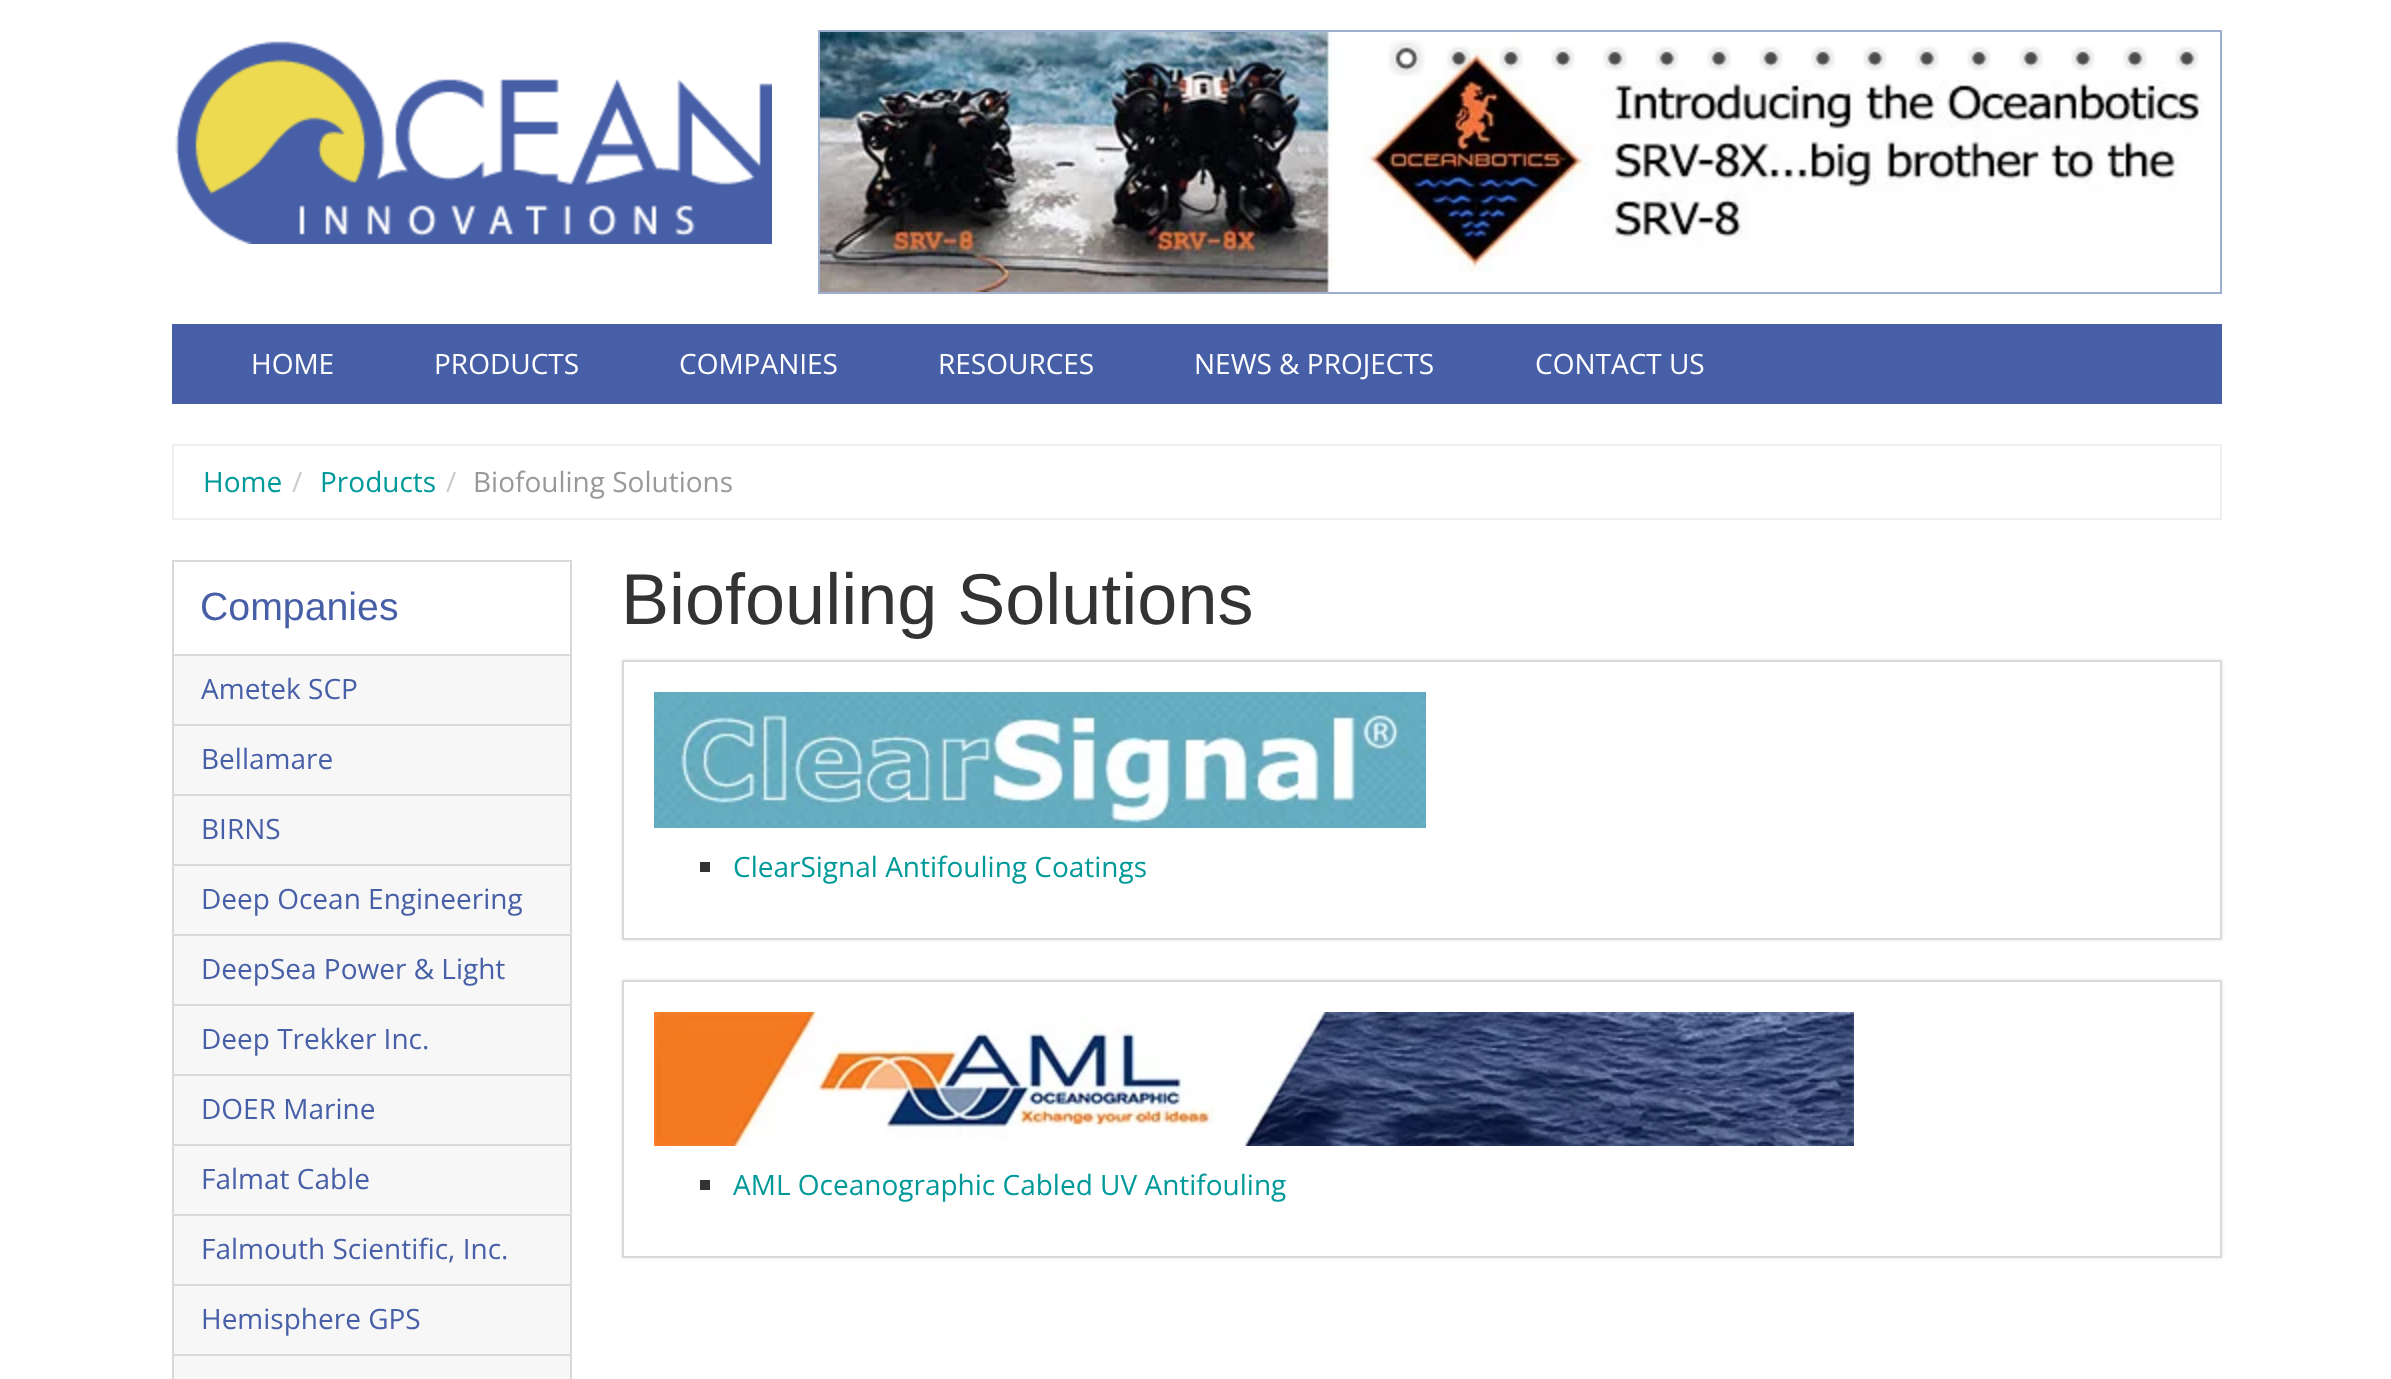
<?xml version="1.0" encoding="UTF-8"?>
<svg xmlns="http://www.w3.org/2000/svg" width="2391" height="1379">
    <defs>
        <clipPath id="clip1"><path d="M 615 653 H 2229 V 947 H 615 Z M 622 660 H 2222 V 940 H 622 Z" clip-rule="evenodd"/></clipPath>
        <filter id="blur1" x="-50%" y="-200%" width="200%" height="500%"><feGaussianBlur stdDeviation="2"/></filter>
        <clipPath id="clip2"><path d="M 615 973 H 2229 V 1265 H 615 Z M 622 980 H 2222 V 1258 H 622 Z" clip-rule="evenodd"/></clipPath>
    </defs>
    <rect width="100%" height="100%" fill="#FFFFFF"/>
    <image x="175" y="41" width="597" height="203" href="img_01.png"/>
    <rect x="819" y="31" width="1402" height="262" fill="none" stroke="#9EAED0" stroke-width="2"/>
    <image x="820" y="32" width="1384" height="260" href="img_02.png"/>
    <image x="1388" y="40" width="37" height="36" href="img_03.png"/>
    <image x="1447" y="46" width="24" height="25" href="img_04.png"/>
    <image x="1499" y="46" width="24" height="25" href="img_05.png"/>
    <image x="1551" y="46" width="24" height="25" href="img_06.png"/>
    <image x="1603" y="46" width="24" height="25" href="img_06.png"/>
    <image x="1655" y="46" width="24" height="25" href="img_06.png"/>
    <image x="1707" y="46" width="24" height="25" href="img_06.png"/>
    <image x="1759" y="46" width="24" height="25" href="img_06.png"/>
    <image x="1811" y="46" width="24" height="25" href="img_06.png"/>
    <image x="1863" y="46" width="24" height="25" href="img_06.png"/>
    <image x="1915" y="46" width="24" height="25" href="img_06.png"/>
    <image x="1967" y="46" width="24" height="25" href="img_06.png"/>
    <image x="2019" y="46" width="24" height="25" href="img_06.png"/>
    <image x="2071" y="46" width="24" height="25" href="img_06.png"/>
    <image x="2123" y="46" width="24" height="25" href="img_06.png"/>
    <image x="2175" y="46" width="24" height="25" href="img_06.png"/>
    <rect x="172" y="324" width="2050" height="80" fill="#475FA7"/>
    <text x="251" y="374" font-family="Open Sans" font-size="28" fill="#FFFFFF">HOME</text>
    <text x="434" y="374" font-family="Open Sans" font-size="28" fill="#FFFFFF">PRODUCTS</text>
    <text x="679" y="374" font-family="Open Sans" font-size="28" fill="#FFFFFF">COMPANIES</text>
    <text x="938" y="374" font-family="Open Sans" font-size="28" fill="#FFFFFF">RESOURCES</text>
    <text x="1194" y="374" font-family="Open Sans" font-size="28" fill="#FFFFFF">NEWS &amp; PROJECTS</text>
    <text x="1535" y="374" font-family="Open Sans" font-size="28" fill="#FFFFFF">CONTACT US</text>
    <rect x="173" y="445" width="2048" height="74" fill="none" stroke="#F0EEEE" stroke-width="2"/>
    <text x="203" y="492" font-family="Open Sans" font-size="28" fill="#00999A">Home</text>
    <text x="292" y="492" font-family="Open Sans" font-size="28" fill="#CCCCCC">/</text>
    <text x="320" y="492" font-family="Open Sans" font-size="28" fill="#00999A">Products</text>
    <text x="446" y="492" font-family="Open Sans" font-size="28" fill="#CCCCCC">/</text>
    <text x="473" y="492" font-family="Open Sans" font-size="28" fill="#999999">Biofouling Solutions</text>
    <rect x="173" y="561" width="398" height="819" fill="none" stroke="#D9D9D9" stroke-width="2"/>
    <text x="200" y="620" font-family="Liberation Sans" font-size="39.25" fill="#475FA7">Companies</text>
    <rect x="174" y="656" width="396" height="68" fill="#F7F7F7"/>
    <rect x="174" y="654" width="396" height="2" fill="#D9D9D9"/>
    <text x="201" y="699" font-family="Open Sans" font-size="28" fill="#475FA7">Ametek SCP</text>
    <rect x="174" y="726" width="396" height="68" fill="#F7F7F7"/>
    <rect x="174" y="724" width="396" height="2" fill="#D9D9D9"/>
    <text x="201" y="769" font-family="Open Sans" font-size="28" fill="#475FA7">Bellamare</text>
    <rect x="174" y="796" width="396" height="68" fill="#F7F7F7"/>
    <rect x="174" y="794" width="396" height="2" fill="#D9D9D9"/>
    <text x="201" y="839" font-family="Open Sans" font-size="28" fill="#475FA7">BIRNS</text>
    <rect x="174" y="866" width="396" height="68" fill="#F7F7F7"/>
    <rect x="174" y="864" width="396" height="2" fill="#D9D9D9"/>
    <text x="201" y="909" font-family="Open Sans" font-size="28" fill="#475FA7">Deep Ocean Engineering</text>
    <rect x="174" y="936" width="396" height="68" fill="#F7F7F7"/>
    <rect x="174" y="934" width="396" height="2" fill="#D9D9D9"/>
    <text x="201" y="979" font-family="Open Sans" font-size="28" fill="#475FA7">DeepSea Power &amp; Light</text>
    <rect x="174" y="1006" width="396" height="68" fill="#F7F7F7"/>
    <rect x="174" y="1004" width="396" height="2" fill="#D9D9D9"/>
    <text x="201" y="1049" font-family="Open Sans" font-size="28" fill="#475FA7">Deep Trekker Inc.</text>
    <rect x="174" y="1076" width="396" height="68" fill="#F7F7F7"/>
    <rect x="174" y="1074" width="396" height="2" fill="#D9D9D9"/>
    <text x="201" y="1119" font-family="Open Sans" font-size="28" fill="#475FA7">DOER Marine</text>
    <rect x="174" y="1146" width="396" height="68" fill="#F7F7F7"/>
    <rect x="174" y="1144" width="396" height="2" fill="#D9D9D9"/>
    <text x="201" y="1189" font-family="Open Sans" font-size="28" fill="#475FA7">Falmat Cable</text>
    <rect x="174" y="1216" width="396" height="68" fill="#F7F7F7"/>
    <rect x="174" y="1214" width="396" height="2" fill="#D9D9D9"/>
    <text x="201" y="1259" font-family="Open Sans" font-size="28" fill="#475FA7">Falmouth Scientific, Inc.</text>
    <rect x="174" y="1286" width="396" height="68" fill="#F7F7F7"/>
    <rect x="174" y="1284" width="396" height="2" fill="#D9D9D9"/>
    <text x="201" y="1329" font-family="Open Sans" font-size="28" fill="#475FA7">Hemisphere GPS</text>
    <rect x="174" y="1356" width="396" height="23" fill="#F7F7F7"/>
    <rect x="174" y="1354" width="396" height="2" fill="#D9D9D9"/>
    <text x="621" y="624" font-family="Liberation Sans" font-size="72" fill="#333333">Biofouling Solutions</text>
    <g clip-path="url(#clip1)">
        <rect x="622" y="660" width="1600" height="280" fill="#000000" fill-opacity="0.1" filter="url(#blur1)"/>
    </g>
    <rect x="623" y="661" width="1598" height="278" fill="none" stroke="#D9D9D9" stroke-width="2"/>
    <image x="654" y="692" width="772" height="136" href="img_07.png"/>
    <rect x="700" y="862" width="10" height="10" fill="#333333"/>
    <text x="733" y="877" font-family="Open Sans" font-size="28" fill="#00999A">ClearSignal Antifouling Coatings</text>
    <g clip-path="url(#clip2)">
        <rect x="622" y="980" width="1600" height="278" fill="#000000" fill-opacity="0.1" filter="url(#blur1)"/>
    </g>
    <rect x="623" y="981" width="1598" height="276" fill="none" stroke="#D9D9D9" stroke-width="2"/>
    <image x="654" y="1012" width="1200" height="134" href="img_08.png"/>
    <rect x="700" y="1180" width="10" height="10" fill="#333333"/>
    <text x="733" y="1195" font-family="Open Sans" font-size="28" fill="#00999A">AML Oceanographic Cabled UV Antifouling</text>
</svg>
